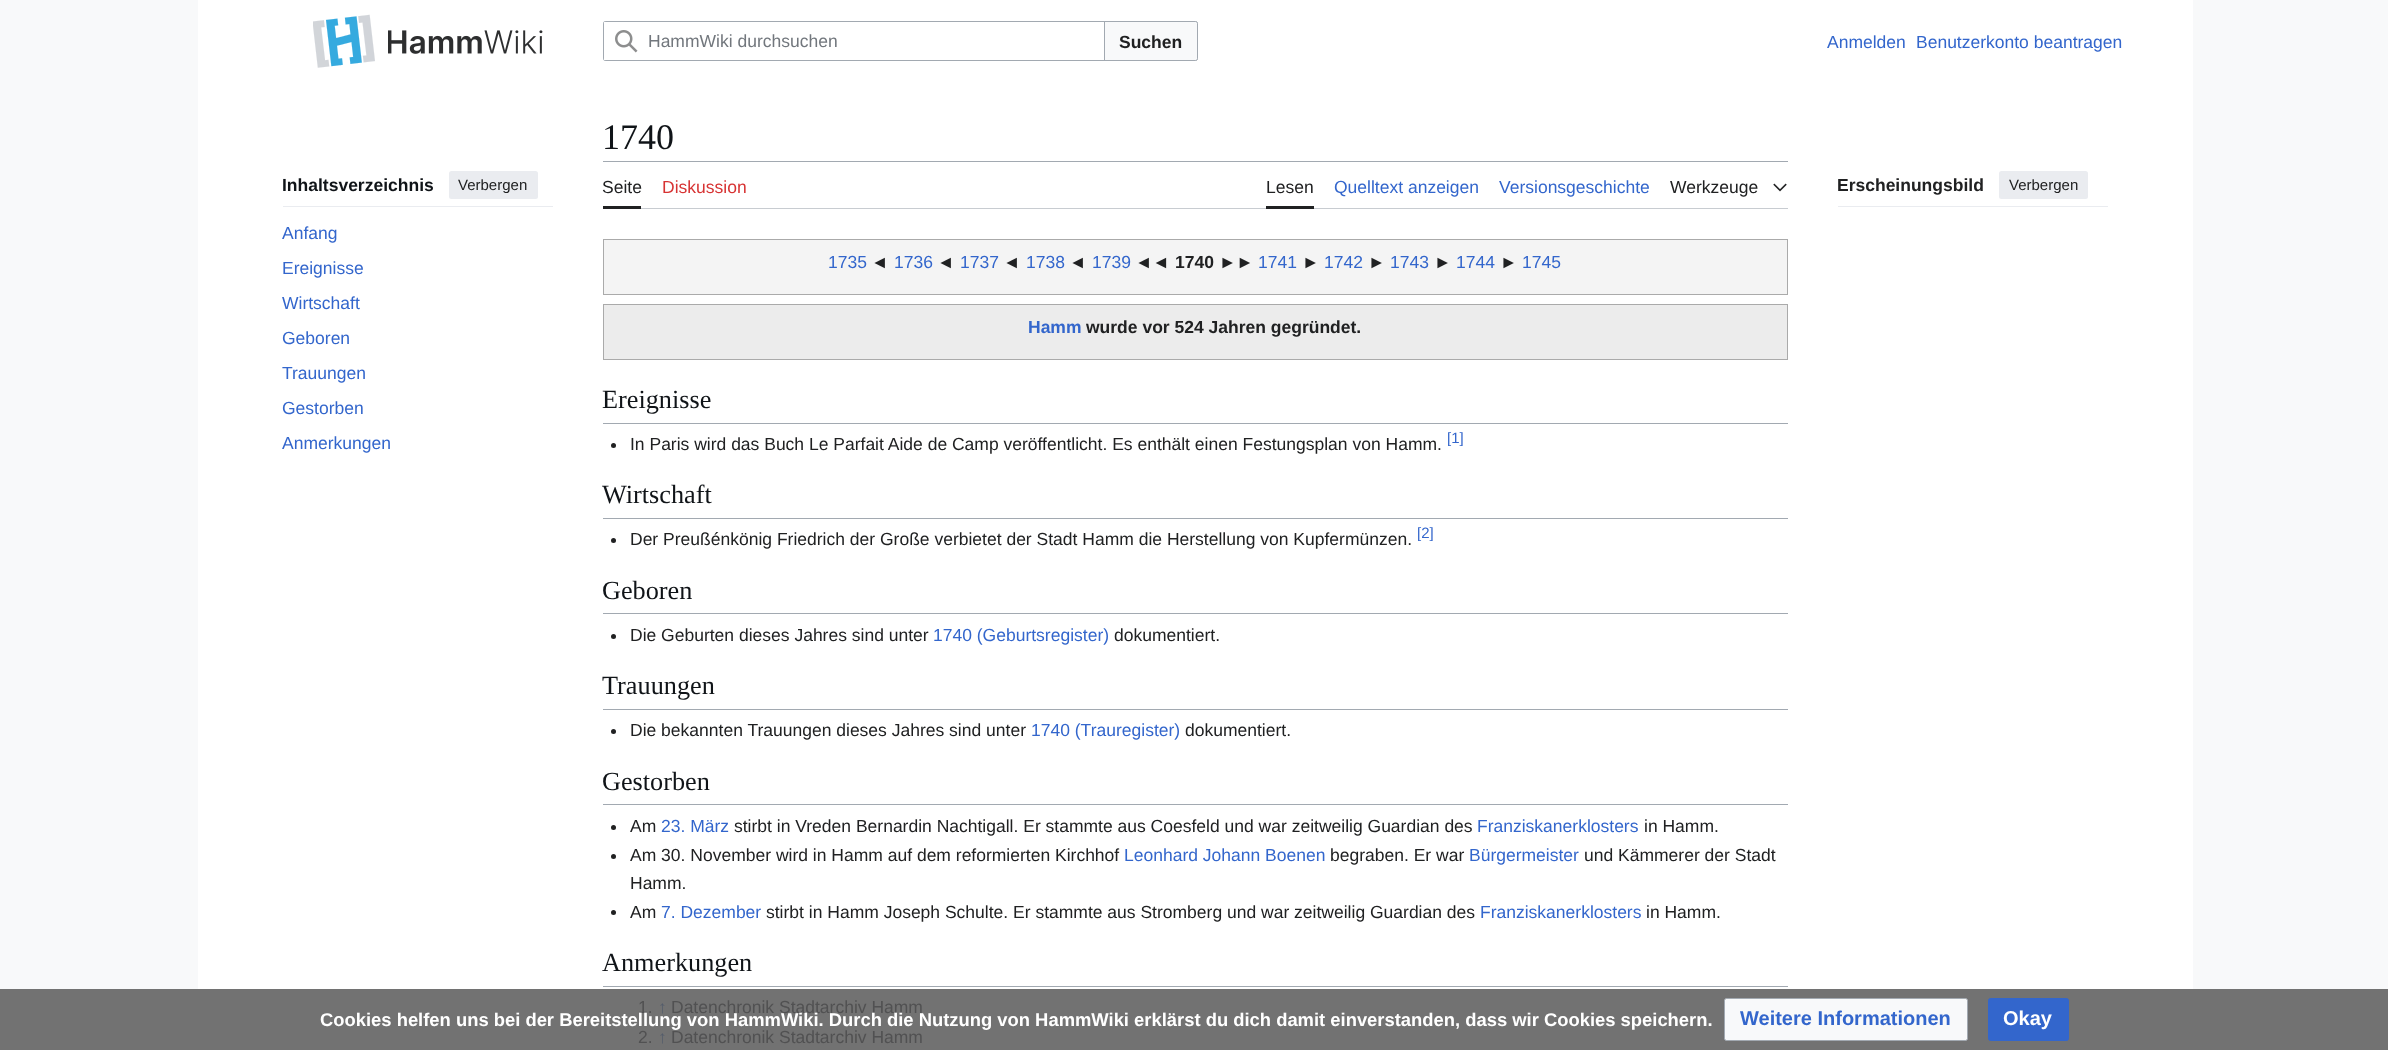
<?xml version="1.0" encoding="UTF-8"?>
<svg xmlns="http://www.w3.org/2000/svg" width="2388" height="1050">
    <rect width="100%" height="100%" fill="#F8F9FA"/>
    <rect x="0" y="989" width="2388" height="61" fill="#727272"/>
    <rect x="198" y="0" width="1995" height="989" fill="#FFFFFF"/>
    <image x="313" y="14" width="62" height="54" href="img_01.png"/>
    <image x="388" y="30" width="155" height="24" href="img_02.png"/>
    <rect x="603.5" y="21.5" width="594" height="39" rx="2" fill="none" stroke="#A2A9B1"/>
    <path d="M 1104.5 21.5 H 1195.5 C 1196.5 21.5 1197.5 22.5 1197.5 23.5 V 58.5 C 1197.5 59.5 1196.5 60.5 1195.5 60.5 H 1104.5 Z" fill="#F8F9FA" stroke="#A2A9B1"/>
    <path d="M 605.5 21 H 1105 V 61 H 605.5 C 604 61 603 60 603 58.5 V 23.5 C 603 22 604 21 605.5 21 Z" fill="#FFFFFF"/>
    <path d="M 606 21 C 604 21 603 22 603 24 V 58 C 603 60 604 61 606 61 H 1105 V 21 Z M 604 22 V 60 H 1104 V 22 Z" fill="#A2A9B1" fill-rule="evenodd"/>
    <image x="615" y="30" width="23" height="23" href="img_03.png"/>
    <text x="648" y="47" font-family="Liberation Sans" font-size="17.5" fill="#72777D">HammWiki durchsuchen</text>
    <text x="1119" y="48" font-family="Liberation Sans" font-size="17.5" font-weight="700" fill="#202122">Suchen</text>
    <text x="1827" y="48" font-family="Liberation Sans" font-size="17.5" fill="#3366CC">Anmelden</text>
    <text x="1916" y="48" font-family="Liberation Sans" font-size="17.5" fill="#3366CC">Benutzerkonto beantragen</text>
    <text x="602" y="149" font-family="Liberation Serif" font-size="36" fill="#101418">1740</text>
    <rect x="603" y="161" width="1185" height="1" fill="#A2A9B1"/>
    <path d="M 603 208 V 209 H 1788 V 164 V 208 Z" fill="#C8CCD1"/>
    <rect x="603" y="206" width="38" height="3" fill="#202122"/>
    <text x="602" y="193" font-family="Liberation Sans" font-size="17.5" fill="#202122">Seite</text>
    <text x="662" y="193" font-family="Liberation Sans" font-size="17.5" fill="#D73333">Diskussion</text>
    <rect x="1266" y="206" width="48" height="3" fill="#202122"/>
    <text x="1266" y="193" font-family="Liberation Sans" font-size="17.5" fill="#202122">Lesen</text>
    <text x="1334" y="193" font-family="Liberation Sans" font-size="17.5" fill="#3366CC">Quelltext anzeigen</text>
    <text x="1499" y="193" font-family="Liberation Sans" font-size="17.5" fill="#3366CC">Versionsgeschichte</text>
    <text x="1670" y="193" font-family="Liberation Sans" font-size="17.5" fill="#202122">Werkzeuge</text>
    <image x="1773" y="183" width="14" height="9" href="img_04.png"/>
    <rect x="1838" y="206" width="270" height="1" fill="#EAECF0"/>
    <text x="1837" y="191" font-family="Liberation Sans" font-size="17.5" font-weight="700" fill="#202122">Erscheinungsbild</text>
    <rect x="1999" y="171" width="89" height="28" rx="2.5" fill="#EAECF0"/>
    <text x="2009" y="190" font-family="Liberation Sans" font-size="15" fill="#202122">Verbergen</text>
    <rect x="603.5" y="239.5" width="1184" height="55" fill="#F4F4F4" stroke="#AAAAAA"/>
    <text x="828" y="268" font-family="Liberation Sans" font-size="17.5" fill="#3366CC">1735</text>
    <text x="871" y="268" font-family="Liberation Sans" font-size="17.5" fill="#202122">◄</text>
    <text x="894" y="268" font-family="Liberation Sans" font-size="17.5" fill="#3366CC">1736</text>
    <text x="937" y="268" font-family="Liberation Sans" font-size="17.5" fill="#202122">◄</text>
    <text x="960" y="268" font-family="Liberation Sans" font-size="17.5" fill="#3366CC">1737</text>
    <text x="1003" y="268" font-family="Liberation Sans" font-size="17.5" fill="#202122">◄</text>
    <text x="1026" y="268" font-family="Liberation Sans" font-size="17.5" fill="#3366CC">1738</text>
    <text x="1069" y="268" font-family="Liberation Sans" font-size="17.5" fill="#202122">◄</text>
    <text x="1092" y="268" font-family="Liberation Sans" font-size="17.5" fill="#3366CC">1739</text>
    <text x="1135" y="268" font-family="Liberation Sans" font-size="17.5" fill="#202122">◄◄</text>
    <text x="1175" y="268" font-family="Liberation Sans" font-size="17.5" font-weight="700" fill="#202122">1740</text>
    <text x="1219" y="268" font-family="Liberation Sans" font-size="17.5" fill="#202122">►►</text>
    <text x="1258" y="268" font-family="Liberation Sans" font-size="17.5" fill="#3366CC">1741</text>
    <text x="1302" y="268" font-family="Liberation Sans" font-size="17.5" fill="#202122">►</text>
    <text x="1324" y="268" font-family="Liberation Sans" font-size="17.5" fill="#3366CC">1742</text>
    <text x="1368" y="268" font-family="Liberation Sans" font-size="17.5" fill="#202122">►</text>
    <text x="1390" y="268" font-family="Liberation Sans" font-size="17.5" fill="#3366CC">1743</text>
    <text x="1434" y="268" font-family="Liberation Sans" font-size="17.5" fill="#202122">►</text>
    <text x="1456" y="268" font-family="Liberation Sans" font-size="17.5" fill="#3366CC">1744</text>
    <text x="1500" y="268" font-family="Liberation Sans" font-size="17.5" fill="#202122">►</text>
    <text x="1522" y="268" font-family="Liberation Sans" font-size="17.5" fill="#3366CC">1745</text>
    <rect x="603.5" y="304.5" width="1184" height="55" fill="#ECECEC" stroke="#AAAAAA"/>
    <text x="1028" y="333" font-family="Liberation Sans" font-size="17.5" font-weight="700" fill="#3366CC">Hamm</text>
    <text x="1086" y="333" font-family="Liberation Sans" font-size="17.5" font-weight="700" fill="#202122">wurde vor 524 Jahren gegründet.</text>
    <rect x="603" y="423" width="1185" height="1" fill="#A2A9B1"/>
    <text x="602" y="408" font-family="Liberation Serif" font-size="26.25" fill="#101418">Ereignisse</text>
    <circle cx="613.5" cy="445.5" r="2.5" fill="#202122"/>
    <text x="630" y="450" font-family="Liberation Sans" font-size="17.5" fill="#202122">In Paris wird das Buch Le Parfait Aide de Camp veröffentlicht. Es enthält einen Festungsplan von Hamm.</text>
    <text x="1447" y="443" font-family="Liberation Sans" font-size="15" fill="#3366CC">[1]</text>
    <rect x="603" y="518" width="1185" height="1" fill="#A2A9B1"/>
    <text x="602" y="503" font-family="Liberation Serif" font-size="26.25" fill="#101418">Wirtschaft</text>
    <circle cx="613.5" cy="540.5" r="2.5" fill="#202122"/>
    <text x="630" y="545" font-family="Liberation Sans" font-size="17.5" fill="#202122">Der Preußénkönig Friedrich der Große verbietet der Stadt Hamm die Herstellung von Kupfermünzen.</text>
    <text x="1417" y="538" font-family="Liberation Sans" font-size="15" fill="#3366CC">[2]</text>
    <rect x="603" y="613" width="1185" height="1" fill="#A2A9B1"/>
    <text x="602" y="599" font-family="Liberation Serif" font-size="26.25" fill="#101418">Geboren</text>
    <circle cx="613.5" cy="636.5" r="2.5" fill="#202122"/>
    <text x="630" y="641" font-family="Liberation Sans" font-size="17.5" fill="#202122">Die Geburten dieses Jahres sind unter</text>
    <text x="933" y="641" font-family="Liberation Sans" font-size="17.5" fill="#3366CC">1740 (Geburtsregister)</text>
    <text x="1114" y="641" font-family="Liberation Sans" font-size="17.5" fill="#202122">dokumentiert.</text>
    <rect x="603" y="709" width="1185" height="1" fill="#A2A9B1"/>
    <text x="602" y="694" font-family="Liberation Serif" font-size="26.25" fill="#101418">Trauungen</text>
    <circle cx="613.5" cy="731.5" r="2.5" fill="#202122"/>
    <text x="630" y="736" font-family="Liberation Sans" font-size="17.5" fill="#202122">Die bekannten Trauungen dieses Jahres sind unter</text>
    <text x="1031" y="736" font-family="Liberation Sans" font-size="17.5" fill="#3366CC">1740 (Trauregister)</text>
    <text x="1185" y="736" font-family="Liberation Sans" font-size="17.5" fill="#202122">dokumentiert.</text>
    <rect x="603" y="804" width="1185" height="1" fill="#A2A9B1"/>
    <text x="602" y="790" font-family="Liberation Serif" font-size="26.25" fill="#101418">Gestorben</text>
    <circle cx="613.5" cy="827.5" r="2.5" fill="#202122"/>
    <text x="630" y="832" font-family="Liberation Sans" font-size="17.5" fill="#202122">Am</text>
    <text x="661" y="832" font-family="Liberation Sans" font-size="17.5" fill="#3366CC">23. März</text>
    <text x="734" y="832" font-family="Liberation Sans" font-size="17.5" fill="#202122">stirbt in Vreden Bernardin Nachtigall. Er stammte aus Coesfeld und war zeitweilig Guardian des</text>
    <text x="1477" y="832" font-family="Liberation Sans" font-size="17.5" fill="#3366CC">Franziskanerklosters</text>
    <text x="1644" y="832" font-family="Liberation Sans" font-size="17.5" fill="#202122">in Hamm.</text>
    <circle cx="613.5" cy="856.5" r="2.5" fill="#202122"/>
    <text x="630" y="861" font-family="Liberation Sans" font-size="17.5" fill="#202122">Am 30. November wird in Hamm auf dem reformierten Kirchhof</text>
    <text x="1124" y="861" font-family="Liberation Sans" font-size="17.5" fill="#3366CC">Leonhard Johann Boenen</text>
    <text x="1330" y="861" font-family="Liberation Sans" font-size="17.5" fill="#202122">begraben. Er war</text>
    <text x="1469" y="861" font-family="Liberation Sans" font-size="17.5" fill="#3366CC">Bürgermeister</text>
    <text x="1584" y="861" font-family="Liberation Sans" font-size="17.5" fill="#202122">und Kämmerer der Stadt</text>
    <text x="630" y="889" font-family="Liberation Sans" font-size="17.5" fill="#202122">Hamm.</text>
    <circle cx="613.5" cy="912.5" r="2.5" fill="#202122"/>
    <text x="630" y="918" font-family="Liberation Sans" font-size="17.5" fill="#202122">Am</text>
    <text x="661" y="918" font-family="Liberation Sans" font-size="17.5" fill="#3366CC">7. Dezember</text>
    <text x="766" y="918" font-family="Liberation Sans" font-size="17.5" fill="#202122">stirbt in Hamm Joseph Schulte. Er stammte aus Stromberg und war zeitweilig Guardian des</text>
    <text x="1480" y="918" font-family="Liberation Sans" font-size="17.5" fill="#3366CC">Franziskanerklosters</text>
    <text x="1646" y="918" font-family="Liberation Sans" font-size="17.5" fill="#202122">in Hamm.</text>
    <rect x="603" y="986" width="1185" height="1" fill="#A2A9B1"/>
    <text x="602" y="971" font-family="Liberation Serif" font-size="26.25" fill="#101418">Anmerkungen</text>
    <text x="638" y="1013" font-family="Liberation Sans" font-size="17.5" fill="#515152">1.</text>
    <text x="658" y="1013" font-family="Liberation Sans" font-size="17.5" fill="#545C6B">↑</text>
    <text x="671" y="1013" font-family="Liberation Sans" font-size="17.5" fill="#515152">Datenchronik Stadtarchiv Hamm</text>
    <text x="638" y="1043" font-family="Liberation Sans" font-size="17.5" fill="#515152">2.</text>
    <text x="658" y="1043" font-family="Liberation Sans" font-size="17.5" fill="#545C6B">↑</text>
    <text x="671" y="1043" font-family="Liberation Sans" font-size="17.5" fill="#515152">Datenchronik Stadtarchiv Hamm</text>
    <text x="320" y="1026" font-family="Liberation Sans" font-size="18.4" font-weight="700" fill="#FFFFFF">Cookies helfen uns bei der Bereitstellung von HammWiki. Durch die Nutzung von HammWiki erklärst du dich damit einverstanden, dass wir Cookies speichern.</text>
    <rect x="1724.5" y="998.5" width="243" height="42" rx="2" fill="#F8F9FA" stroke="#A2A9B1"/>
    <text x="1740" y="1025" font-family="Liberation Sans" font-size="20" font-weight="700" fill="#3366CC">Weitere Informationen</text>
    <rect x="1988.5" y="998.5" width="80" height="42" rx="2" fill="#3366CC" stroke="#3366CC"/>
    <text x="2003" y="1025" font-family="Liberation Sans" font-size="20" font-weight="700" fill="#FFFFFF">Okay</text>
    <rect x="283" y="206" width="270" height="1" fill="#EAECF0"/>
    <text x="282" y="191" font-family="Liberation Sans" font-size="17.5" font-weight="700" fill="#101418">Inhaltsverzeichnis</text>
    <rect x="449" y="171" width="89" height="28" rx="2.5" fill="#EAECF0"/>
    <text x="458" y="190" font-family="Liberation Sans" font-size="15" fill="#202122">Verbergen</text>
    <text x="282" y="239" font-family="Liberation Sans" font-size="17.5" fill="#3366CC">Anfang</text>
    <text x="282" y="274" font-family="Liberation Sans" font-size="17.5" fill="#3366CC">Ereignisse</text>
    <text x="282" y="309" font-family="Liberation Sans" font-size="17.5" fill="#3366CC">Wirtschaft</text>
    <text x="282" y="344" font-family="Liberation Sans" font-size="17.5" fill="#3366CC">Geboren</text>
    <text x="282" y="379" font-family="Liberation Sans" font-size="17.5" fill="#3366CC">Trauungen</text>
    <text x="282" y="414" font-family="Liberation Sans" font-size="17.5" fill="#3366CC">Gestorben</text>
    <text x="282" y="449" font-family="Liberation Sans" font-size="17.5" fill="#3366CC">Anmerkungen</text>
</svg>
